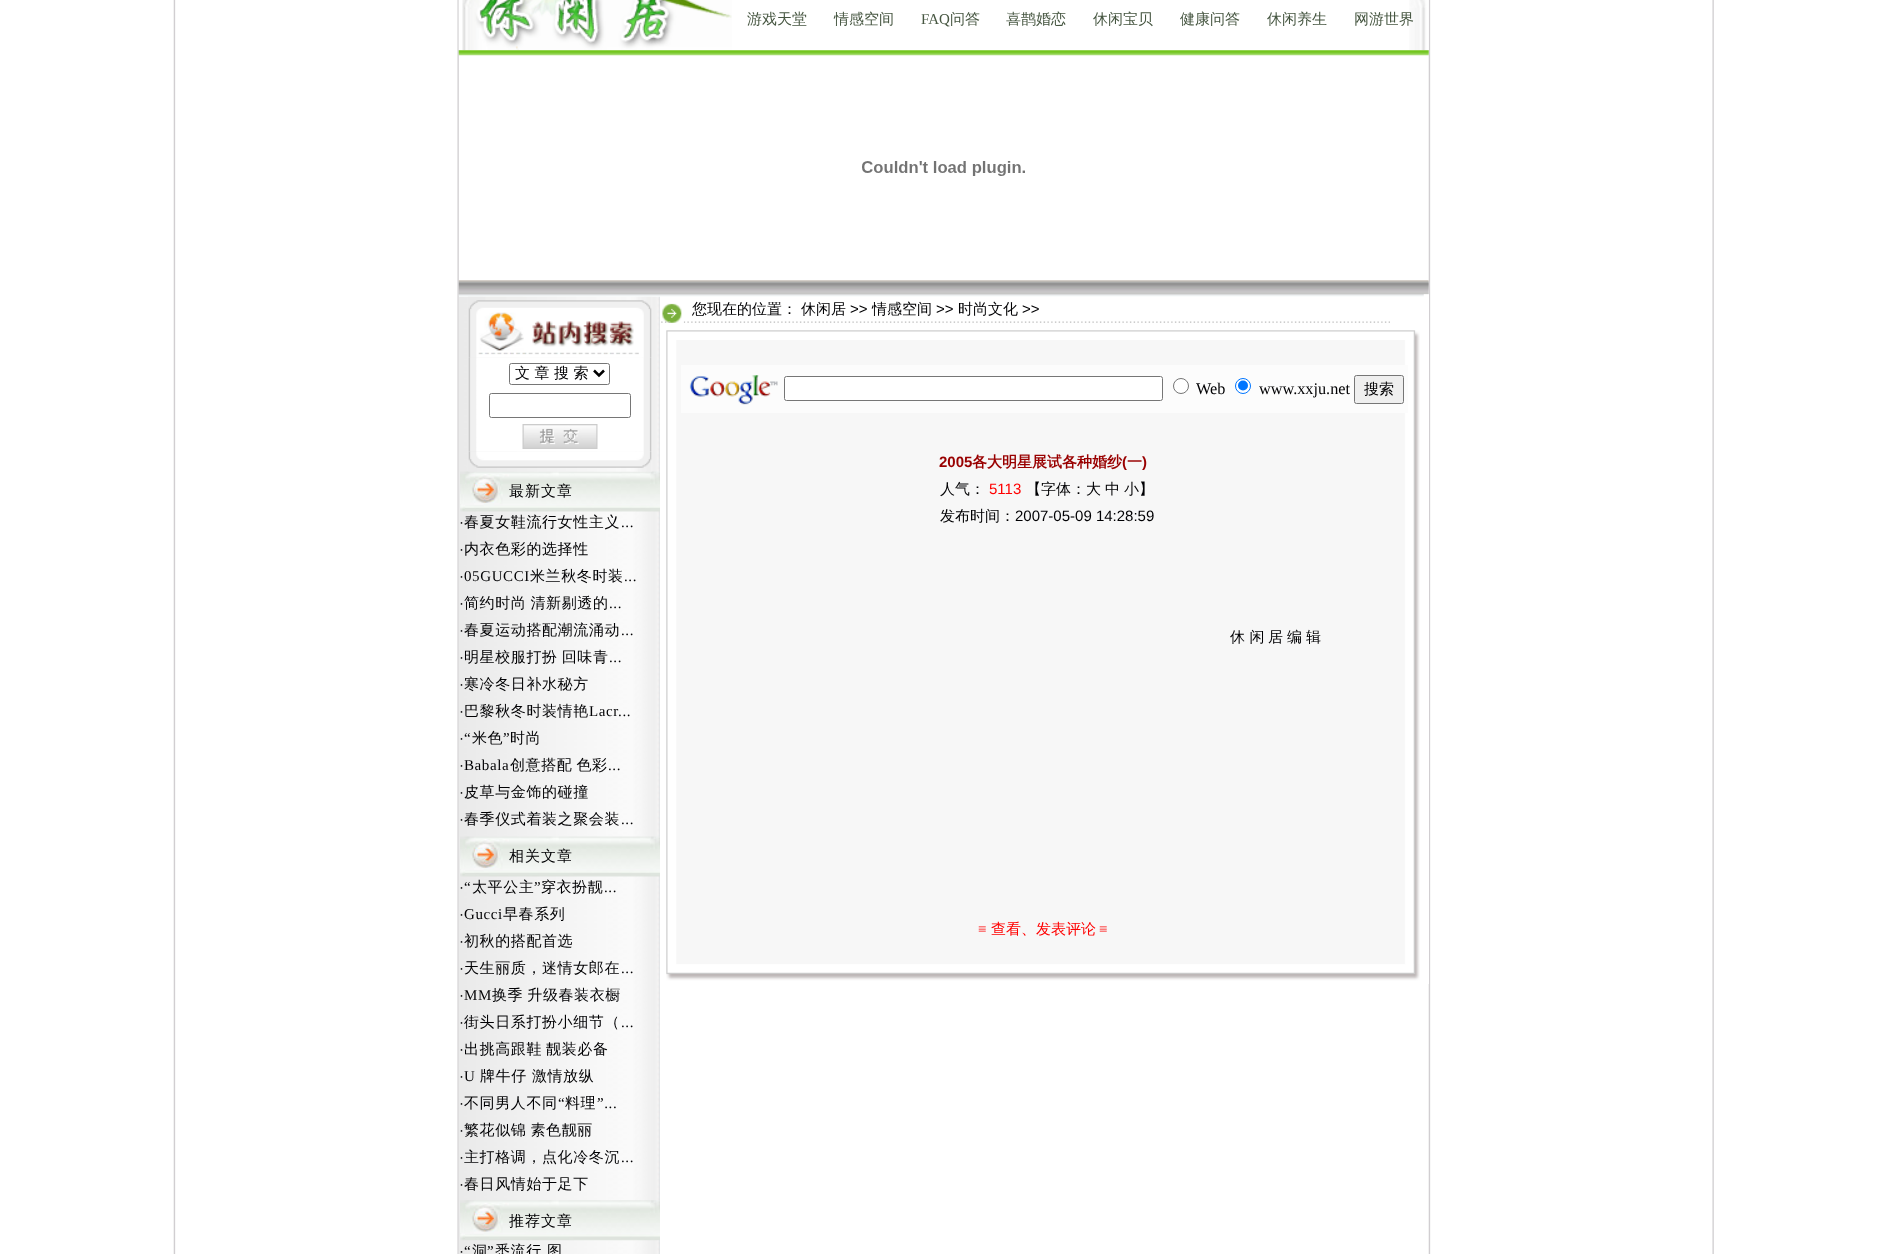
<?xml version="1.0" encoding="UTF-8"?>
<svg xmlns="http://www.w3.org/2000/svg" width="1887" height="1254">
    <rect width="100%" height="100%" fill="#FFFFFF"/>
    <image x="173" y="0" width="1541" height="1254" href="img_01.png"/>
    <image x="458" y="0" width="274" height="51" href="img_02.png"/>
    <image x="1409" y="0" width="20" height="51" href="img_03.png"/>
    <text x="747" y="24" font-family="WenQuanYi Zen Hei" font-size="15" font-weight="500" fill="#465641">游戏天堂</text>
    <text x="834" y="24" font-family="WenQuanYi Zen Hei" font-size="15" font-weight="500" fill="#465641">情感空间</text>
    <text x="921" y="24" font-family="Liberation Serif" font-size="15" fill="#465641">FAQ</text>
    <text x="950" y="24" font-family="WenQuanYi Zen Hei" font-size="15" font-weight="500" fill="#465641">问答</text>
    <text x="1006" y="24" font-family="WenQuanYi Zen Hei" font-size="15" font-weight="500" fill="#465641">喜鹊婚恋</text>
    <text x="1093" y="24" font-family="WenQuanYi Zen Hei" font-size="15" font-weight="500" fill="#465641">休闲宝贝</text>
    <text x="1180" y="24" font-family="WenQuanYi Zen Hei" font-size="15" font-weight="500" fill="#465641">健康问答</text>
    <text x="1267" y="24" font-family="WenQuanYi Zen Hei" font-size="15" font-weight="500" fill="#465641">休闲养生</text>
    <text x="1354" y="24" font-family="WenQuanYi Zen Hei" font-size="15" font-weight="500" fill="#465641">网游世界</text>
    <image x="458" y="50" width="971" height="6" href="img_04.png"/>
    <image x="862" y="161" width="163" height="15" href="img_05.png"/>
    <rect x="1428" y="280" width="1" height="704" fill="#FFFFFF"/>
    <image x="458" y="296" width="202" height="958" href="img_07.png"/>
    <image x="468" y="357" width="184" height="95" href="img_09.png"/>
    <image x="468" y="296" width="184" height="62" href="img_08.png"/>
    <image x="458" y="280" width="971" height="17" href="img_06.png"/>
    <rect x="509.5" y="363.5" width="100" height="21" rx="2" fill="none" stroke="#767676"/>
    <path d="M 594 370.5 L 599 375.5 L 604 370.5" fill="none" stroke="#000000" stroke-width="2.5"/>
    <text x="515" y="378" font-family="WenQuanYi Zen Hei" font-size="15" font-weight="500" fill="#000003">文 章 搜 索</text>
    <rect x="489.5" y="393.5" width="141" height="24" rx="2" fill="none" stroke="#767676"/>
    <image x="522" y="424" width="76" height="25" href="img_10.png"/>
    <image x="460" y="471" width="200" height="41" href="img_12.png"/>
    <image x="468" y="451" width="184" height="21" href="img_11.png"/>
    <text x="509" y="496" font-family="WenQuanYi Zen Hei" font-size="15" font-weight="500" letter-spacing="1" fill="#000003">最新文章</text>
    <text x="459" y="527" font-family="Liberation Sans" font-size="15" letter-spacing="0.6" fill="#000003">·</text>
    <text x="464" y="527" font-family="WenQuanYi Zen Hei" font-size="15" font-weight="500" letter-spacing="0.6" fill="#000003">春夏女鞋流行女性主义</text>
    <text x="621" y="527" font-family="Liberation Serif" font-size="15" letter-spacing="0.6" fill="#000003">...</text>
    <text x="459" y="554" font-family="Liberation Sans" font-size="15" letter-spacing="0.6" fill="#000003">·</text>
    <text x="464" y="554" font-family="WenQuanYi Zen Hei" font-size="15" font-weight="500" letter-spacing="0.6" fill="#000003">内衣色彩的选择性</text>
    <text x="459" y="581" font-family="Liberation Sans" font-size="15" letter-spacing="0.6" fill="#000003">·</text>
    <text x="464" y="581" font-family="Liberation Serif" font-size="15" letter-spacing="0.6" fill="#000003">05GUCCI</text>
    <text x="530" y="581" font-family="WenQuanYi Zen Hei" font-size="15" font-weight="500" letter-spacing="0.6" fill="#000003">米兰秋冬时装</text>
    <text x="624" y="581" font-family="Liberation Serif" font-size="15" letter-spacing="0.6" fill="#000003">...</text>
    <text x="459" y="608" font-family="Liberation Sans" font-size="15" letter-spacing="0.6" fill="#000003">·</text>
    <text x="464" y="608" word-spacing="-1" font-family="WenQuanYi Zen Hei" font-size="15" font-weight="500" letter-spacing="0.6" fill="#000003">简约时尚 清新剔透的</text>
    <text x="609" y="608" font-family="Liberation Serif" font-size="15" letter-spacing="0.6" fill="#000003">...</text>
    <text x="459" y="635" font-family="Liberation Sans" font-size="15" letter-spacing="0.6" fill="#000003">·</text>
    <text x="464" y="635" font-family="WenQuanYi Zen Hei" font-size="15" font-weight="500" letter-spacing="0.6" fill="#000003">春夏运动搭配潮流涌动</text>
    <text x="621" y="635" font-family="Liberation Serif" font-size="15" letter-spacing="0.6" fill="#000003">...</text>
    <text x="459" y="662" font-family="Liberation Sans" font-size="15" letter-spacing="0.6" fill="#000003">·</text>
    <text x="464" y="662" word-spacing="-1" font-family="WenQuanYi Zen Hei" font-size="15" font-weight="500" letter-spacing="0.6" fill="#000003">明星校服打扮 回味青</text>
    <text x="609" y="662" font-family="Liberation Serif" font-size="15" letter-spacing="0.6" fill="#000003">...</text>
    <text x="459" y="689" font-family="Liberation Sans" font-size="15" letter-spacing="0.6" fill="#000003">·</text>
    <text x="464" y="689" font-family="WenQuanYi Zen Hei" font-size="15" font-weight="500" letter-spacing="0.6" fill="#000003">寒冷冬日补水秘方</text>
    <text x="459" y="716" font-family="Liberation Sans" font-size="15" letter-spacing="0.6" fill="#000003">·</text>
    <text x="464" y="716" font-family="WenQuanYi Zen Hei" font-size="15" font-weight="500" letter-spacing="0.6" fill="#000003">巴黎秋冬时装情艳</text>
    <text x="589" y="716" font-family="Liberation Serif" font-size="15" letter-spacing="0.6" fill="#000003">Lacr...</text>
    <text x="464" y="743" font-family="Liberation Serif" font-size="15" letter-spacing="0.6" fill="#000003">“</text>
    <text x="472" y="743" font-family="WenQuanYi Zen Hei" font-size="15" font-weight="500" letter-spacing="0.6" fill="#000003">米色</text>
    <text x="503" y="743" font-family="Liberation Serif" font-size="15" letter-spacing="0.6" fill="#000003">”</text>
    <text x="510" y="743" font-family="WenQuanYi Zen Hei" font-size="15" font-weight="500" letter-spacing="0.6" fill="#000003">时尚</text>
    <text font-family="Liberation Sans" font-size="15" letter-spacing="0.6" fill="#000003">
        <tspan x="459" y="743">·</tspan>
        <tspan x="459" y="770">·</tspan>
    </text>
    <text x="464" y="770" font-family="Liberation Serif" font-size="15" letter-spacing="0.6" fill="#000003">Babala</text>
    <text x="510" y="770" word-spacing="-1" font-family="WenQuanYi Zen Hei" font-size="15" font-weight="500" letter-spacing="0.6" fill="#000003">创意搭配 色彩</text>
    <text x="608" y="770" font-family="Liberation Serif" font-size="15" letter-spacing="0.6" fill="#000003">...</text>
    <text x="459" y="797" font-family="Liberation Sans" font-size="15" letter-spacing="0.6" fill="#000003">·</text>
    <text x="464" y="797" font-family="WenQuanYi Zen Hei" font-size="15" font-weight="500" letter-spacing="0.6" fill="#000003">皮草与金饰的碰撞</text>
    <text x="459" y="824" font-family="Liberation Sans" font-size="15" letter-spacing="0.6" fill="#000003">·</text>
    <text x="464" y="824" font-family="WenQuanYi Zen Hei" font-size="15" font-weight="500" letter-spacing="0.6" fill="#000003">春季仪式着装之聚会装</text>
    <text x="621" y="824" font-family="Liberation Serif" font-size="15" letter-spacing="0.6" fill="#000003">...</text>
    <image x="460" y="836" width="200" height="41" href="img_13.png"/>
    <text x="509" y="861" font-family="WenQuanYi Zen Hei" font-size="15" font-weight="500" letter-spacing="1" fill="#000003">相关文章</text>
    <text x="464" y="892" font-family="Liberation Serif" font-size="15" letter-spacing="0.6" fill="#000003">“</text>
    <text x="472" y="892" font-family="WenQuanYi Zen Hei" font-size="15" font-weight="500" letter-spacing="0.6" fill="#000003">太平公主</text>
    <text x="534" y="892" font-family="Liberation Serif" font-size="15" letter-spacing="0.6" fill="#000003">”</text>
    <text x="541" y="892" font-family="WenQuanYi Zen Hei" font-size="15" font-weight="500" letter-spacing="0.6" fill="#000003">穿衣扮靓</text>
    <text x="459" y="892" font-family="Liberation Sans" font-size="15" letter-spacing="0.6" fill="#000003">·</text>
    <text x="604" y="892" font-family="Liberation Serif" font-size="15" letter-spacing="0.6" fill="#000003">...</text>
    <text x="459" y="919" font-family="Liberation Sans" font-size="15" letter-spacing="0.6" fill="#000003">·</text>
    <text x="464" y="919" font-family="Liberation Serif" font-size="15" letter-spacing="0.6" fill="#000003">Gucci</text>
    <text x="503" y="919" font-family="WenQuanYi Zen Hei" font-size="15" font-weight="500" letter-spacing="0.6" fill="#000003">早春系列</text>
    <text x="459" y="946" font-family="Liberation Sans" font-size="15" letter-spacing="0.6" fill="#000003">·</text>
    <text x="464" y="946" font-family="WenQuanYi Zen Hei" font-size="15" font-weight="500" letter-spacing="0.6" fill="#000003">初秋的搭配首选</text>
    <text x="459" y="973" font-family="Liberation Sans" font-size="15" letter-spacing="0.6" fill="#000003">·</text>
    <text x="464" y="973" font-family="WenQuanYi Zen Hei" font-size="15" font-weight="500" letter-spacing="0.6" fill="#000003">天生丽质，迷情女郎在</text>
    <text x="621" y="973" font-family="Liberation Serif" font-size="15" letter-spacing="0.6" fill="#000003">...</text>
    <text x="459" y="1000" font-family="Liberation Sans" font-size="15" letter-spacing="0.6" fill="#000003">·</text>
    <text x="464" y="1000" font-family="Liberation Serif" font-size="15" letter-spacing="0.6" fill="#000003">MM</text>
    <text x="492" y="1000" word-spacing="-1" font-family="WenQuanYi Zen Hei" font-size="15" font-weight="500" letter-spacing="0.6" fill="#000003">换季 升级春装衣橱</text>
    <text x="459" y="1027" font-family="Liberation Sans" font-size="15" letter-spacing="0.6" fill="#000003">·</text>
    <text x="464" y="1027" font-family="WenQuanYi Zen Hei" font-size="15" font-weight="500" letter-spacing="0.6" fill="#000003">街头日系打扮小细节（</text>
    <text x="621" y="1027" font-family="Liberation Serif" font-size="15" letter-spacing="0.6" fill="#000003">...</text>
    <text x="459" y="1054" font-family="Liberation Sans" font-size="15" letter-spacing="0.6" fill="#000003">·</text>
    <text x="464" y="1054" word-spacing="-1" font-family="WenQuanYi Zen Hei" font-size="15" font-weight="500" letter-spacing="0.6" fill="#000003">出挑高跟鞋 靓装必备</text>
    <text x="459" y="1081" font-family="Liberation Sans" font-size="15" letter-spacing="0.6" fill="#000003">·</text>
    <text x="464" y="1081" font-family="Liberation Serif" font-size="15" letter-spacing="0.6" fill="#000003">U</text>
    <text x="480" y="1081" font-family="WenQuanYi Zen Hei" font-size="15" font-weight="500" letter-spacing="0.6" fill="#000003">牌牛仔 激情放纵</text>
    <text x="459" y="1108" font-family="Liberation Sans" font-size="15" letter-spacing="0.6" fill="#000003">·</text>
    <text x="464" y="1108" font-family="WenQuanYi Zen Hei" font-size="15" font-weight="500" letter-spacing="0.6" fill="#000003">不同男人不同</text>
    <text x="558" y="1108" font-family="Liberation Serif" font-size="15" letter-spacing="0.6" fill="#000003">“</text>
    <text x="565" y="1108" font-family="WenQuanYi Zen Hei" font-size="15" font-weight="500" letter-spacing="0.6" fill="#000003">料理</text>
    <text x="597" y="1108" font-family="Liberation Serif" font-size="15" letter-spacing="0.6" fill="#000003">”...</text>
    <text x="459" y="1135" font-family="Liberation Sans" font-size="15" letter-spacing="0.6" fill="#000003">·</text>
    <text x="464" y="1135" word-spacing="-1" font-family="WenQuanYi Zen Hei" font-size="15" font-weight="500" letter-spacing="0.6" fill="#000003">繁花似锦 素色靓丽</text>
    <text x="459" y="1162" font-family="Liberation Sans" font-size="15" letter-spacing="0.6" fill="#000003">·</text>
    <text x="464" y="1162" font-family="WenQuanYi Zen Hei" font-size="15" font-weight="500" letter-spacing="0.6" fill="#000003">主打格调，点化冷冬沉</text>
    <text x="621" y="1162" font-family="Liberation Serif" font-size="15" letter-spacing="0.6" fill="#000003">...</text>
    <text x="459" y="1189" font-family="Liberation Sans" font-size="15" letter-spacing="0.6" fill="#000003">·</text>
    <text x="464" y="1189" font-family="WenQuanYi Zen Hei" font-size="15" font-weight="500" letter-spacing="0.6" fill="#000003">春日风情始于足下</text>
    <image x="460" y="1200" width="200" height="41" href="img_14.png"/>
    <text x="509" y="1226" font-family="WenQuanYi Zen Hei" font-size="15" font-weight="500" letter-spacing="1" fill="#000003">推荐文章</text>
    <text x="464" y="1256" font-family="Liberation Serif" font-size="15" letter-spacing="0.6" fill="#000003">“</text>
    <text x="472" y="1256" font-family="WenQuanYi Zen Hei" font-size="15" font-weight="500" letter-spacing="0.6" fill="#000003">洞</text>
    <text x="487" y="1256" font-family="Liberation Serif" font-size="15" letter-spacing="0.6" fill="#000003">”</text>
    <text x="495" y="1256" font-family="WenQuanYi Zen Hei" font-size="15" font-weight="500" letter-spacing="0.6" fill="#000003">悉流行</text>
    <text x="547" y="1256" font-family="WenQuanYi Zen Hei" font-size="15" font-weight="500" letter-spacing="0.6" fill="#000003">图</text>
    <text x="459" y="1256" font-family="Liberation Sans" font-size="15" letter-spacing="0.6" fill="#000003">·</text>
    <image x="683" y="321" width="707" height="2" href="img_16.png"/>
    <image x="661" y="303" width="23" height="24" href="img_15.png"/>
    <text x="692" y="314" font-family="WenQuanYi Zen Hei" font-size="15" font-weight="500" fill="#000003">您现在的位置：</text>
    <text x="801" y="314" font-family="WenQuanYi Zen Hei" font-size="15" font-weight="500" fill="#000003">休闲居</text>
    <text x="850" y="314" font-family="Liberation Sans" font-size="15" fill="#000003">&gt;&gt;</text>
    <text x="872" y="314" font-family="WenQuanYi Zen Hei" font-size="15" font-weight="500" fill="#000003">情感空间</text>
    <text x="936" y="314" font-family="Liberation Sans" font-size="15" fill="#000003">&gt;&gt;</text>
    <text x="958" y="314" font-family="WenQuanYi Zen Hei" font-size="15" font-weight="500" fill="#000003">时尚文化</text>
    <text x="1022" y="314" font-family="Liberation Sans" font-size="15" fill="#000003">&gt;&gt;</text>
    <image x="661" y="321" width="10" height="2" href="img_17.png"/>
    <image x="666" y="340" width="754" height="624" href="img_18.png"/>
    <image x="666" y="324" width="754" height="16" href="img_19.png"/>
    <rect x="681" y="365" width="727" height="48" fill="#FCFCFC"/>
    <image x="689" y="375" width="89" height="30" href="img_20.png"/>
    <rect x="784.5" y="376.5" width="378" height="24" rx="2" fill="#FFFFFF" stroke="#767676"/>
    <circle cx="1181" cy="386" r="7.5" fill="#FFFFFF" stroke="#767676"/>
    <text x="1196" y="394" font-family="Liberation Serif" font-size="16.25" fill="#000003">Web</text>
    <circle cx="1243" cy="386" r="7.5" fill="#FFFFFF" stroke="#0075FF"/>
    <circle cx="1243" cy="385.5" r="5" fill="#0075FF"/>
    <text x="1259" y="394" font-family="Liberation Serif" font-size="16.25" fill="#000003">www.xxju.net</text>
    <rect x="1354.5" y="375.5" width="49" height="28" rx="2" fill="#EFEFEF" stroke="#767676"/>
    <text x="1364" y="394" font-family="WenQuanYi Zen Hei" font-size="15" font-weight="500" fill="#000003">搜索</text>
    <text x="939" y="467" font-family="Liberation Sans" font-size="15" font-weight="700" fill="#990000">2005</text>
    <text x="972" y="467" font-family="WenQuanYi Zen Hei" font-size="15" font-weight="700" fill="#990000">各大明星展试各种婚纱</text>
    <text x="1122" y="467" font-family="Liberation Sans" font-size="15" font-weight="700" fill="#990000">(</text>
    <text x="1127" y="467" font-family="WenQuanYi Zen Hei" font-size="15" font-weight="700" fill="#990000">一</text>
    <text x="1142" y="467" font-family="Liberation Sans" font-size="15" font-weight="700" fill="#990000">)</text>
    <text x="940" y="494" font-family="WenQuanYi Zen Hei" font-size="15" font-weight="500" fill="#000003">人气：</text>
    <text x="989" y="494" font-family="Liberation Sans" font-size="15" fill="#FF0000">5113</text>
    <text x="1026" y="494" font-family="WenQuanYi Zen Hei" font-size="15" font-weight="500" fill="#000003">【字体：</text>
    <text x="1086" y="494" font-family="WenQuanYi Zen Hei" font-size="15" font-weight="500" fill="#000003">大</text>
    <text x="1105" y="494" font-family="WenQuanYi Zen Hei" font-size="15" font-weight="500" fill="#000003">中</text>
    <text x="1124" y="494" font-family="WenQuanYi Zen Hei" font-size="15" font-weight="500" fill="#000003">小</text>
    <text x="1139" y="494" font-family="WenQuanYi Zen Hei" font-size="15" font-weight="500" fill="#000003">】</text>
    <text x="940" y="521" font-family="WenQuanYi Zen Hei" font-size="15" font-weight="500" fill="#000003">发布时间：</text>
    <text x="1015" y="521" font-family="Liberation Sans" font-size="15" fill="#000003">2007-05-09 14:28:59</text>
    <text x="1230" y="642" font-family="WenQuanYi Zen Hei" font-size="15" font-weight="500" fill="#000003">休 闲</text>
    <text x="1268" y="642" font-family="WenQuanYi Zen Hei" font-size="15" font-weight="500" fill="#000003">居</text>
    <text x="1287" y="642" font-family="WenQuanYi Zen Hei" font-size="15" font-weight="500" fill="#000003">编</text>
    <text x="1306" y="642" font-family="WenQuanYi Zen Hei" font-size="15" font-weight="500" fill="#000003">辑</text>
    <text x="978" y="934" font-family="Liberation Serif" font-size="15" fill="#FF0000">≡</text>
    <text x="991" y="934" font-family="WenQuanYi Zen Hei" font-size="15" font-weight="500" fill="#FF0000">查看、发表评论</text>
    <text x="1099" y="934" font-family="Liberation Serif" font-size="15" fill="#FF0000">≡</text>
    <image x="666" y="964" width="754" height="20" href="img_21.png"/>
</svg>
